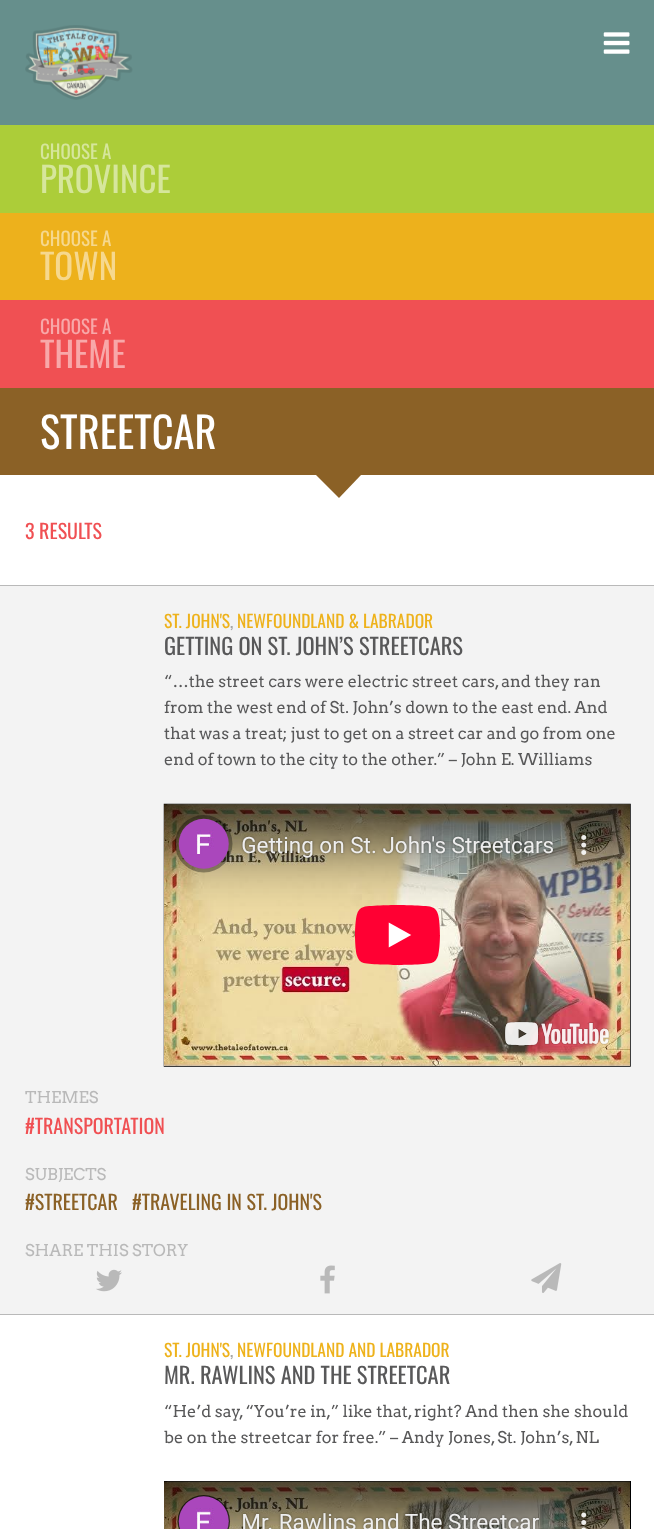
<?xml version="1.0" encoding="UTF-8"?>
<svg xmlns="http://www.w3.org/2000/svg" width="654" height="1529">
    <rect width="100%" height="100%" fill="#FFFFFF"/>
    <rect x="0" y="0" width="654" height="125" fill="#668F8C"/>
    <image x="25" y="25" width="108" height="75" href="img_01.png"/>
    <image x="603" y="32" width="27" height="22" href="img_02.png"/>
    <rect x="0" y="125" width="654" height="88" fill="#ACCD39"/>
    <text x="40" y="159" font-family="Oswald" font-size="19" fill="#D6E69C">CHOOSE A</text>
    <text x="40" y="193" font-family="Oswald" font-size="35" fill="#D6E69C">PROVINCE</text>
    <rect x="0" y="213" width="654" height="87" fill="#EDB11C"/>
    <text x="40" y="246" font-family="Oswald" font-size="19" fill="#F6D88E">CHOOSE A</text>
    <text x="40" y="280" font-family="Oswald" font-size="35" fill="#F6D88E">TOWN</text>
    <rect x="0" y="300" width="654" height="88" fill="#F05053"/>
    <text x="40" y="334" font-family="Oswald" font-size="19" fill="#F8A8A9">CHOOSE A</text>
    <text x="40" y="368" font-family="Oswald" font-size="35" fill="#F8A8A9">THEME</text>
    <rect x="0" y="388" width="654" height="87" fill="#8B6126"/>
    <text x="40" y="449" font-family="Oswald" font-size="42.5" fill="#FFFFFF">STREETCAR</text>
    <path d="M 316 475 H 361 L 339 498 Z" fill="#8B6126"/>
    <text x="25" y="539" font-family="Oswald" font-size="20" fill="#F05053">3 RESULTS</text>
    <rect x="0" y="586" width="654" height="728" fill="#F3F3F3"/>
    <rect x="0" y="585" width="654" height="1" fill="#B9B9B9"/>
    <rect x="0" y="1314" width="654" height="1" fill="#B9B9B9"/>
    <text x="164" y="628" font-family="Oswald" font-size="17.5" fill="#EEB21B">ST. JOHN'S</text>
    <text x="230" y="628" font-family="Oswald" font-size="17.5" fill="#A5A5A5">,</text>
    <text x="237" y="628" font-family="Oswald" font-size="17.5" fill="#EEB21B">NEWFOUNDLAND &amp; LABRADOR</text>
    <text x="164" y="655" font-family="Oswald" font-size="22.5" fill="#585859">GETTING ON ST. JOHN’S STREETCARS</text>
    <text font-family="Arvo" font-size="16.25" fill="#585859">
        <tspan x="164" y="687">“…the street cars were electric street cars, and they ran</tspan>
        <tspan x="164" y="713">from the west end of St. John’s down to the east end. And</tspan>
        <tspan x="164" y="739">that was a treat; just to get on a street car and go from one</tspan>
        <tspan x="164" y="765">end of town to the city to the other.” – John E. Williams</tspan>
    </text>
    <image x="163" y="803" width="468" height="264" href="img_03.png"/>
    <text x="25" y="1103" font-family="Arvo" font-size="16.25" fill="#B9B9B9">THEMES</text>
    <text x="25" y="1134" font-family="Oswald" font-size="20" fill="#F05053">#TRANSPORTATION</text>
    <text x="25" y="1180" font-family="Arvo" font-size="16.25" fill="#B9B9B9">SUBJECTS</text>
    <text x="25" y="1210" font-family="Oswald" font-size="20" fill="#8B6126">#STREETCAR</text>
    <text x="132" y="1210" font-family="Oswald" font-size="20" fill="#8B6126">#TRAVELING IN ST. JOHN'S</text>
    <text x="25" y="1256" font-family="Arvo" font-size="16.25" fill="#B9B9B9">SHARE THIS STORY</text>
    <image x="96" y="1269" width="26" height="23" href="img_04.png"/>
    <image x="320" y="1265" width="15" height="29" href="img_05.png"/>
    <image x="531" y="1263" width="31" height="30" href="img_06.png"/>
    <text x="164" y="1357" font-family="Oswald" font-size="17.5" fill="#EEB21B">ST. JOHN'S</text>
    <text x="230" y="1357" font-family="Oswald" font-size="17.5" fill="#A5A5A5">,</text>
    <text x="237" y="1357" font-family="Oswald" font-size="17.5" fill="#EEB21B">NEWFOUNDLAND AND LABRADOR</text>
    <text x="164" y="1384" font-family="Oswald" font-size="22.5" fill="#585859">MR. RAWLINS AND THE STREETCAR</text>
    <text font-family="Arvo" font-size="16.25" fill="#585859">
        <tspan x="164" y="1417">“He’d say, “You’re in,” like that, right? And then she should</tspan>
        <tspan x="164" y="1443">be on the streetcar for free.” – Andy Jones, St. John’s, NL</tspan>
    </text>
    <image x="164" y="1481" width="467" height="48" href="img_07.png"/>
</svg>
